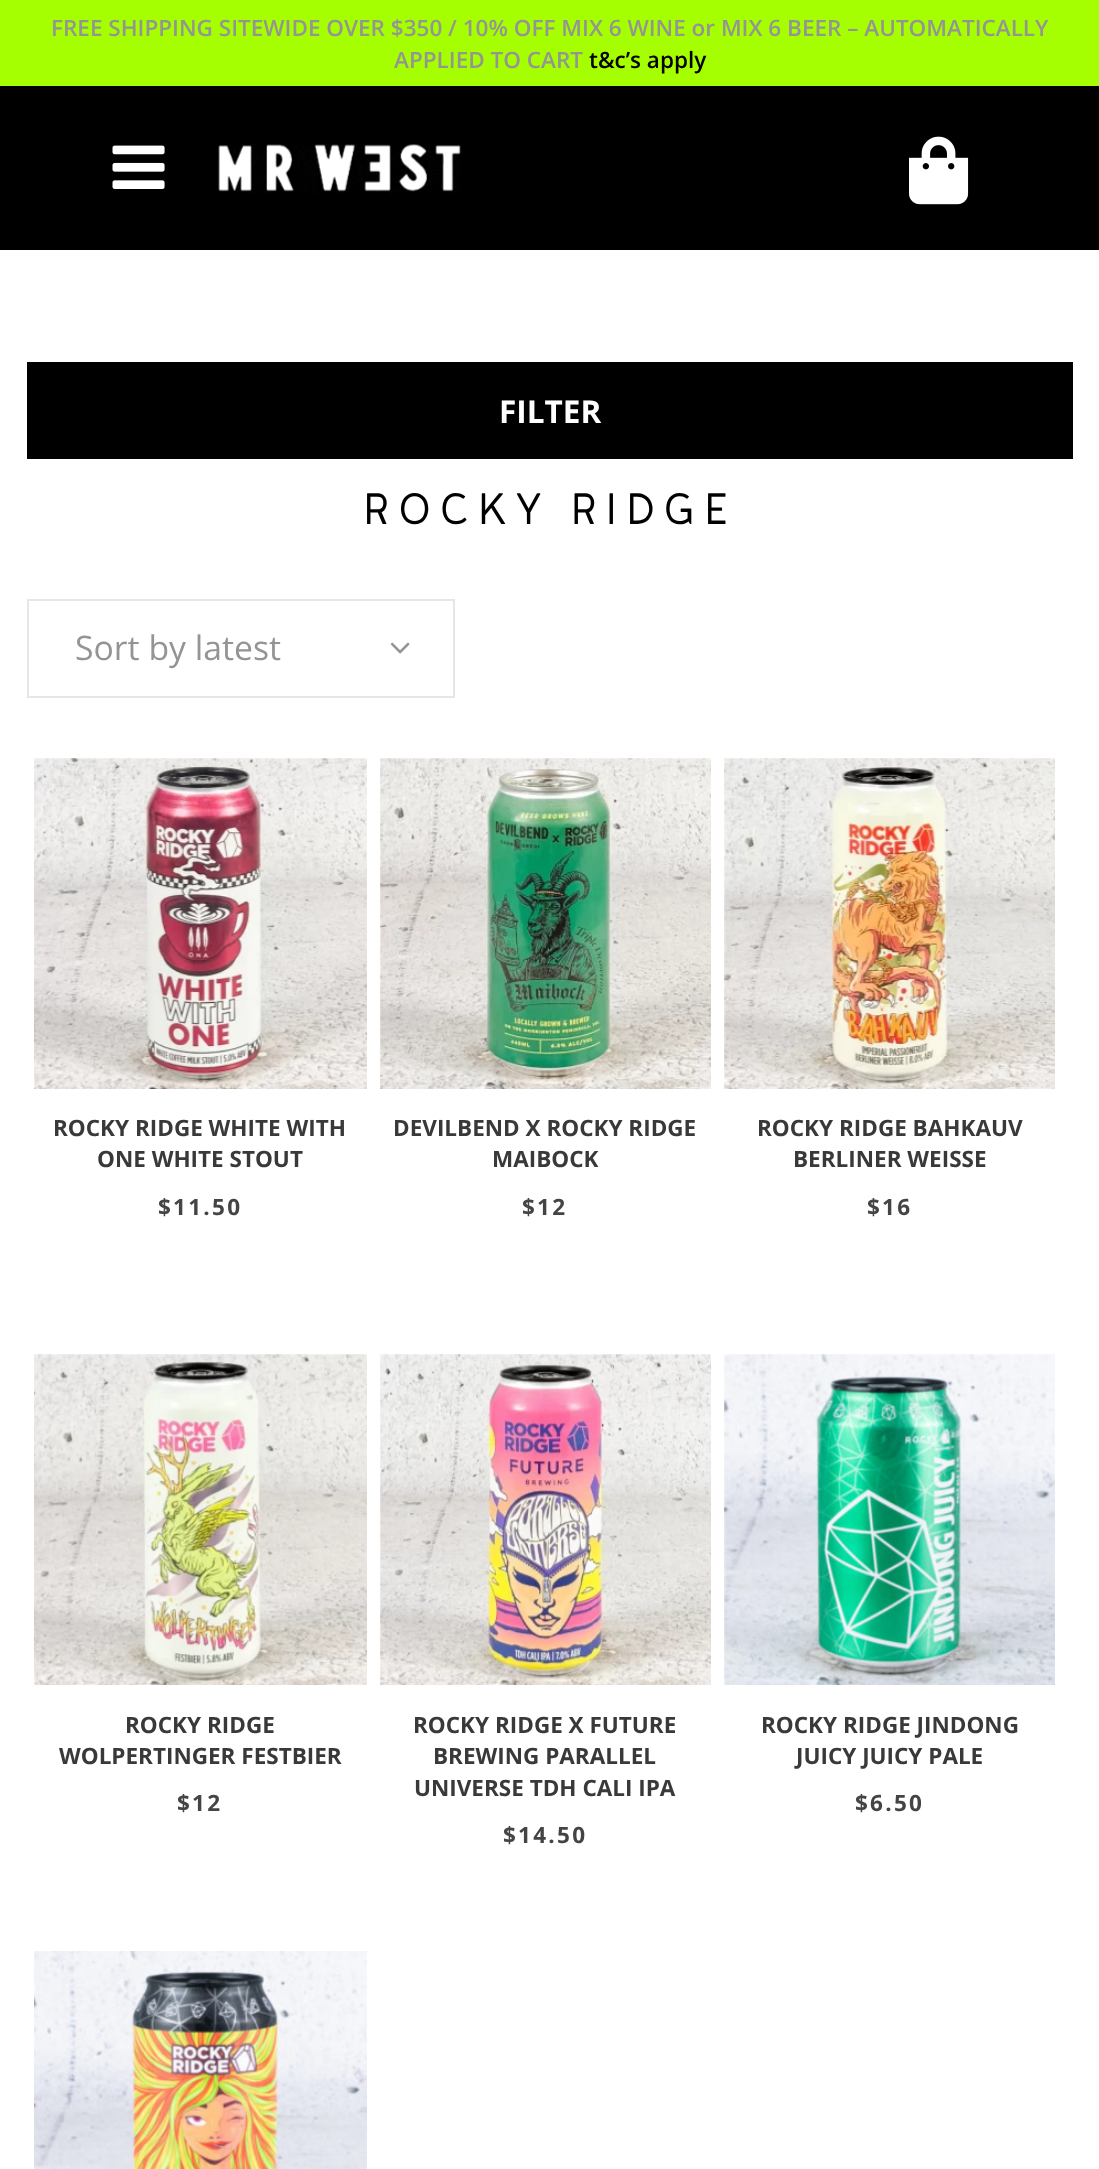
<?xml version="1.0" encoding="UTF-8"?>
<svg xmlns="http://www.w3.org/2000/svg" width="1099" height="2169">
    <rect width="100%" height="100%" fill="#FFFFFF"/>
    <rect x="0" y="0" width="1099" height="86" fill="#A5FF00"/>
    <text x="51" y="36" font-family="Open Sans" font-size="22.5" font-weight="600" fill="#949494">FREE SHIPPING SITEWIDE OVER $350 / 10% OFF MIX 6 WINE or MIX 6 BEER – AUTOMATICALLY</text>
    <text x="394" y="68" font-family="Open Sans" font-size="22.5" font-weight="600" fill="#949494">APPLIED TO CART</text>
    <text x="589" y="68" font-family="Open Sans" font-size="22.5" font-weight="600" fill="#000000">t&amp;c’s apply</text>
    <rect x="0" y="86" width="1099" height="164" fill="#000000"/>
    <image x="112" y="145" width="53" height="44" href="img_01.png"/>
    <image x="218" y="144" width="243" height="50" href="img_02.png"/>
    <image x="909" y="136" width="60" height="69" href="img_03.png"/>
    <rect x="27" y="362" width="1046" height="97" fill="#000000"/>
    <text x="499" y="423" font-family="Open Sans" font-size="31.5" font-weight="700" fill="#FFFFFF">FILTER</text>
    <text x="363" y="524" font-family="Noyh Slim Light" font-size="54" font-weight="300" letter-spacing="9" fill="#000000">ROCKY RIDGE</text>
    <rect x="28" y="600" width="426" height="97" fill="none" stroke="#E6E6E6" stroke-width="2"/>
    <text x="75" y="660" font-family="Open Sans" font-size="33.75" fill="#949494">Sort by latest</text>
    <image x="390" y="642" width="20" height="12" href="img_04.png"/>
    <image x="34" y="758" width="333" height="331" href="img_05.png"/>
    <text x="53" y="1136" font-family="Open Sans" font-size="22.5" font-weight="700" fill="#393939">ROCKY RIDGE WHITE WITH</text>
    <text x="97" y="1167" font-family="Open Sans" font-size="22.5" font-weight="700" fill="#393939">ONE WHITE STOUT</text>
    <text x="158" y="1215" font-family="Open Sans" font-size="22.5" font-weight="700" letter-spacing="2.25" fill="#444444">$11.50</text>
    <image x="380" y="758" width="331" height="331" href="img_06.png"/>
    <text x="393" y="1136" font-family="Open Sans" font-size="22.5" font-weight="700" fill="#393939">DEVILBEND X ROCKY RIDGE</text>
    <text x="492" y="1167" font-family="Open Sans" font-size="22.5" font-weight="700" fill="#393939">MAIBOCK</text>
    <text x="522" y="1215" font-family="Open Sans" font-size="22.5" font-weight="700" letter-spacing="2.25" fill="#444444">$12</text>
    <image x="724" y="758" width="331" height="331" href="img_07.png"/>
    <text x="757" y="1136" font-family="Open Sans" font-size="22.5" font-weight="700" fill="#393939">ROCKY RIDGE BAHKAUV</text>
    <text x="793" y="1167" font-family="Open Sans" font-size="22.5" font-weight="700" fill="#393939">BERLINER WEISSE</text>
    <text x="867" y="1215" font-family="Open Sans" font-size="22.5" font-weight="700" letter-spacing="2.25" fill="#444444">$16</text>
    <image x="34" y="1354" width="333" height="331" href="img_08.png"/>
    <text x="125" y="1733" font-family="Open Sans" font-size="22.5" font-weight="700" fill="#393939">ROCKY RIDGE</text>
    <text x="59" y="1764" font-family="Open Sans" font-size="22.5" font-weight="700" fill="#393939">WOLPERTINGER FESTBIER</text>
    <text x="177" y="1811" font-family="Open Sans" font-size="22.5" font-weight="700" letter-spacing="2.25" fill="#444444">$12</text>
    <image x="380" y="1354" width="331" height="331" href="img_09.png"/>
    <text x="413" y="1733" font-family="Open Sans" font-size="22.5" font-weight="700" fill="#393939">ROCKY RIDGE X FUTURE</text>
    <text x="433" y="1764" font-family="Open Sans" font-size="22.5" font-weight="700" fill="#393939">BREWING PARALLEL</text>
    <text x="414" y="1796" font-family="Open Sans" font-size="22.5" font-weight="700" fill="#393939">UNIVERSE TDH CALI IPA</text>
    <text x="503" y="1843" font-family="Open Sans" font-size="22.5" font-weight="700" letter-spacing="2.25" fill="#444444">$14.50</text>
    <image x="724" y="1354" width="331" height="331" href="img_10.png"/>
    <text x="761" y="1733" font-family="Open Sans" font-size="22.5" font-weight="700" fill="#393939">ROCKY RIDGE JINDONG</text>
    <text x="796" y="1764" font-family="Open Sans" font-size="22.5" font-weight="700" fill="#393939">JUICY JUICY PALE</text>
    <text x="855" y="1811" font-family="Open Sans" font-size="22.5" font-weight="700" letter-spacing="2.25" fill="#444444">$6.50</text>
    <image x="34" y="1951" width="333" height="218" href="img_11.png"/>
</svg>
